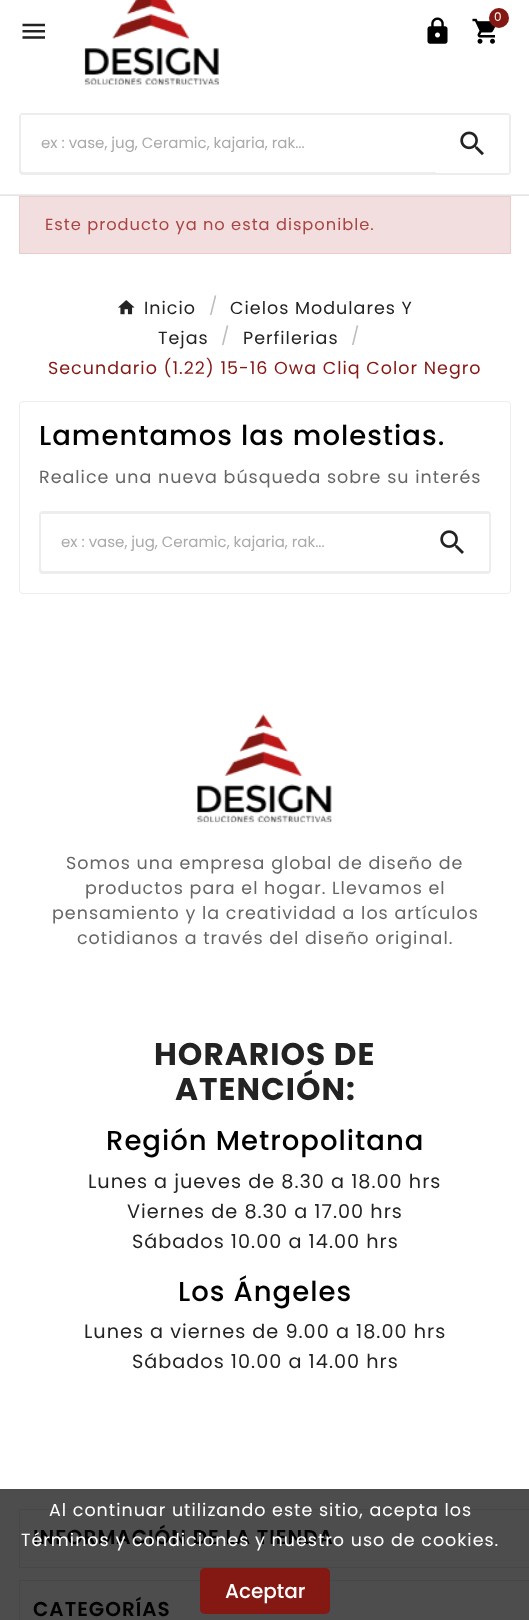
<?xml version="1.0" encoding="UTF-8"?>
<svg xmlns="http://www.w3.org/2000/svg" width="529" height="1620">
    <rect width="100%" height="100%" fill="#FFFFFF"/>
    <rect x="0" y="1489" width="529" height="131" fill="#4D4D4D"/>
    <rect x="0" y="195" width="529" height="1" fill="#E5E5E5"/>
    <rect x="0" y="194" width="529" height="1" fill="#EDEDED"/>
    <image x="84" y="0" width="135" height="85" href="img_01.png"/>
    <image x="472" y="18" width="24" height="26" href="img_02.png"/>
    <circle cx="499" cy="18" r="10" fill="#841813"/>
    <text x="494" y="21" font-family="Poppins" font-size="12" letter-spacing="1" fill="#FFFFFF">0</text>
    <image x="427" y="17" width="21" height="27" href="img_03.png"/>
    <image x="22" y="23" width="23" height="16" href="img_04.png"/>
    <rect x="20.5" y="114.5" width="489" height="59" rx="2.5" fill="none" stroke="#EDEDED" stroke-width="3"/>
    <rect x="21" y="115" width="415" height="56" fill="#FFFFFF"/>
    <text x="41" y="148" font-family="Poppins" font-size="15" fill="#AAAAAA">ex : vase, jug, Ceramic, kajaria, rak...</text>
    <rect x="436" y="115" width="73" height="58" fill="#FFFFFF"/>
    <image x="460" y="131" width="24" height="25" href="img_05.png"/>
    <rect x="19.5" y="196.5" width="491" height="57" fill="#F2DEDE" stroke="#EBCCCC"/>
    <text x="45" y="230" font-family="Poppins" font-size="16.25" letter-spacing="1" fill="#A94442">Este producto ya no esta disponible.</text>
    <image x="118" y="300" width="17" height="15" href="img_06.png"/>
    <text x="144" y="314" font-family="Poppins" font-size="17.5" letter-spacing="1" fill="#232323">Inicio</text>
    <text x="209" y="312" font-family="Poppins" font-size="17.5" letter-spacing="1" fill="#BDBDBD">/</text>
    <text x="230" y="314" font-family="Poppins" font-size="17.5" letter-spacing="1" fill="#232323">Cielos Modulares Y</text>
    <text x="158" y="344" font-family="Poppins" font-size="17.5" letter-spacing="1" fill="#232323">Tejas</text>
    <text x="221" y="342" font-family="Poppins" font-size="17.5" letter-spacing="1" fill="#BDBDBD">/</text>
    <text x="243" y="344" font-family="Poppins" font-size="17.5" letter-spacing="1" fill="#232323">Perfilerias</text>
    <text x="351" y="342" font-family="Poppins" font-size="17.5" letter-spacing="1" fill="#BDBDBD">/</text>
    <text x="48" y="374" font-family="Poppins" font-size="17.5" letter-spacing="1" fill="#841813">Secundario (1.22) 15-16 Owa Cliq Color Negro</text>
    <rect x="19.5" y="401.5" width="491" height="192" rx="3.5" fill="none" stroke="#EDEDED"/>
    <text x="39" y="445" font-family="Poppins" font-size="27.5" font-weight="500" letter-spacing="1" fill="#000000">Lamentamos las molestias.</text>
    <text x="39" y="483" font-family="Poppins" font-size="17.5" letter-spacing="1" fill="#666666">Realice una nueva búsqueda sobre su interés</text>
    <rect x="40.5" y="512.5" width="449" height="60" rx="2.5" fill="none" stroke="#EDEDED" stroke-width="3"/>
    <rect x="41" y="514" width="2" height="56" fill="#FFFFFF"/>
    <text x="61" y="547" font-family="Poppins" font-size="15" fill="#AAAAAA">ex : vase, jug, Ceramic, kajaria, rak...</text>
    <rect x="487" y="514" width="2" height="57" fill="#FFFFFF"/>
    <image x="440" y="530" width="24" height="24" href="img_07.png"/>
    <image x="197" y="714" width="135" height="109" href="img_08.png"/>
    <text x="66" y="869" font-family="Poppins" font-size="17.5" letter-spacing="1" fill="#666666">Somos una empresa global de diseño de</text>
    <text x="85" y="894" font-family="Poppins" font-size="17.5" letter-spacing="1" fill="#666666">productos para el hogar. Llevamos el</text>
    <text x="52" y="919" font-family="Poppins" font-size="17.5" letter-spacing="1" fill="#666666">pensamiento y la creatividad a los artículos</text>
    <text x="77" y="944" font-family="Poppins" font-size="17.5" letter-spacing="1" fill="#666666">cotidianos a través del diseño original.</text>
    <text x="154" y="1065" font-family="Poppins" font-size="31.25" font-weight="700" letter-spacing="1" fill="#232323">HORARIOS DE</text>
    <text x="175" y="1100" font-family="Poppins" font-size="31.25" font-weight="700" letter-spacing="1" fill="#232323">ATENCIÓN:</text>
    <text x="106" y="1150" font-family="Poppins" font-size="27.5" font-weight="500" letter-spacing="1" fill="#000000">Región Metropolitana</text>
    <text x="88" y="1188" font-family="Poppins" font-size="19.25" letter-spacing="1" fill="#232323">Lunes a jueves de 8.30 a 18.00 hrs</text>
    <text x="127" y="1218" font-family="Poppins" font-size="19.25" letter-spacing="1" fill="#232323">Viernes de 8.30 a 17.00 hrs</text>
    <text x="132" y="1248" font-family="Poppins" font-size="19.25" letter-spacing="1" fill="#232323">Sábados 10.00 a 14.00 hrs</text>
    <text x="178" y="1301" font-family="Poppins" font-size="27.5" font-weight="500" letter-spacing="1" fill="#000000">Los Ángeles</text>
    <text x="84" y="1338" font-family="Poppins" font-size="19.25" letter-spacing="1" fill="#232323">Lunes a viernes de 9.00 a 18.00 hrs</text>
    <text x="132" y="1368" font-family="Poppins" font-size="19.25" letter-spacing="1" fill="#232323">Sábados 10.00 a 14.00 hrs</text>
    <rect x="19.5" y="1509.5" width="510" height="58" fill="none" stroke="#474747"/>
    <text x="33" y="1544" font-family="Poppins" font-size="20" font-weight="600" letter-spacing="1" fill="#000000">INFORMACIÓN DE LA TIENDA</text>
    <rect x="19.5" y="1580.5" width="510" height="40" fill="none" stroke="#474747"/>
    <text x="33" y="1616" font-family="Poppins" font-size="20" font-weight="600" letter-spacing="1" fill="#000000">CATEGORÍAS</text>
    <text x="49" y="1516" font-family="Poppins" font-size="17.5" letter-spacing="1" fill="#FFFFFF">Al continuar utilizando este sitio, acepta los</text>
    <text x="21" y="1546" font-family="Poppins" font-size="17.5" letter-spacing="1" fill="#FFFFFF">Términos y condiciones y nuestro uso de cookies.</text>
    <rect x="200" y="1568" width="130" height="46" rx="5" fill="#841813"/>
    <text x="225" y="1598" font-family="Poppins" font-size="20" font-weight="500" fill="#FFFFFF">Aceptar</text>
</svg>
